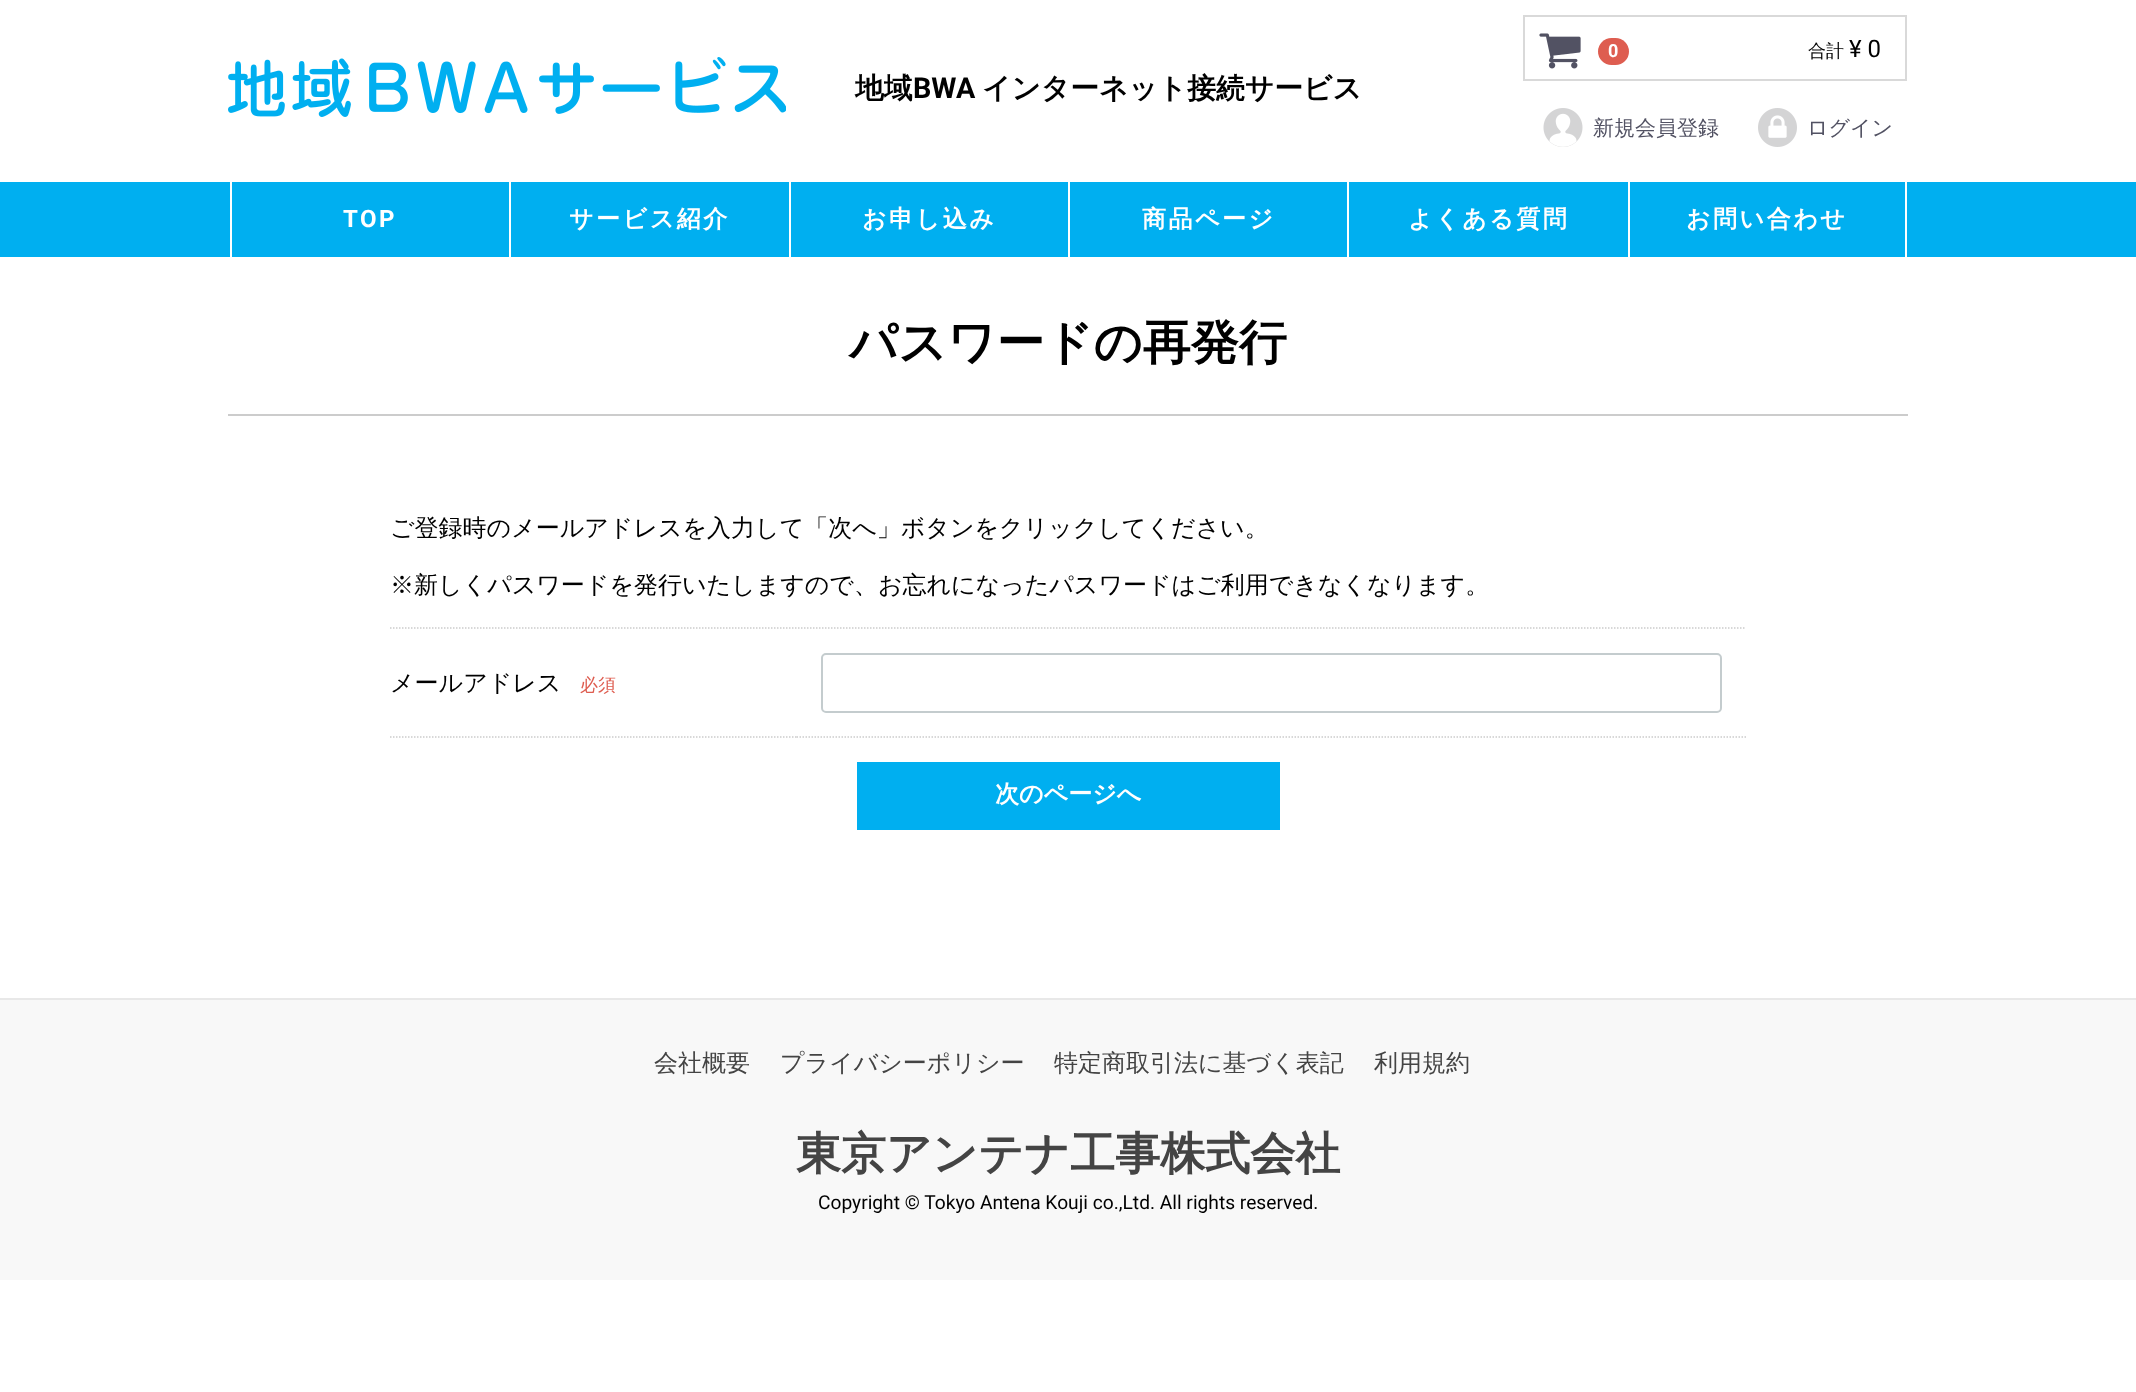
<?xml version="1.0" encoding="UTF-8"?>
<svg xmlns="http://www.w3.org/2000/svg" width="2136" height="1392">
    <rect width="100%" height="100%" fill="#FFFFFF"/>
    <rect x="1524" y="16" width="382" height="64" fill="none" stroke="#D9D9D9" stroke-width="2"/>
    <image x="1539" y="33" width="42" height="36" href="img_01.png"/>
    <rect x="1598" y="38" width="31" height="27" rx="13.5" fill="#DE5D50"/>
    <text x="1608" y="57" font-family="Roboto" font-size="18" font-weight="700" fill="#FFFFFF">0</text>
    <text x="1808" y="57" font-family="WenQuanYi Zen Hei" font-size="18" font-weight="500" fill="#000000">合計</text>
    <text x="1849" y="57" font-family="Roboto" font-size="24" fill="#000000">¥ 0</text>
    <image x="228" y="57" width="558" height="60" href="img_02.png"/>
    <text x="855" y="98" font-family="WenQuanYi Zen Hei" font-size="28.75" font-weight="700" fill="#000000">地域</text>
    <text x="913" y="98" font-family="Roboto" font-size="28.75" font-weight="700" fill="#000000">BWA</text>
    <text x="982" y="98" font-family="WenQuanYi Zen Hei" font-size="28.75" font-weight="700" fill="#000000">インターネット接続サービス</text>
    <image x="1543" y="108" width="40" height="39" href="img_03.png"/>
    <text x="1593" y="135" font-family="WenQuanYi Zen Hei" font-size="21" font-weight="500" fill="#525263">新規会員登録</text>
    <image x="1758" y="108" width="39" height="39" href="img_04.png"/>
    <text x="1807" y="135" font-family="WenQuanYi Zen Hei" font-size="21" font-weight="500" fill="#525263">ログイン</text>
    <rect x="0" y="182" width="2136" height="75" fill="#00AFF0"/>
    <rect x="230" y="182" width="2" height="75" fill="#FFFFFF"/>
    <text x="343" y="227" font-family="Roboto" font-size="24" font-weight="700" letter-spacing="2.5" fill="#FFFFFF">TOP</text>
    <rect x="509" y="182" width="2" height="75" fill="#FFFFFF"/>
    <text x="569" y="227" font-family="WenQuanYi Zen Hei" font-size="24" font-weight="700" letter-spacing="2.5" fill="#FFFFFF">サービス紹介</text>
    <rect x="789" y="182" width="2" height="75" fill="#FFFFFF"/>
    <text x="862" y="227" font-family="WenQuanYi Zen Hei" font-size="24" font-weight="700" letter-spacing="2.5" fill="#FFFFFF">お申し込み</text>
    <rect x="1068" y="182" width="2" height="75" fill="#FFFFFF"/>
    <text x="1142" y="227" font-family="WenQuanYi Zen Hei" font-size="24" font-weight="700" letter-spacing="2.5" fill="#FFFFFF">商品ページ</text>
    <rect x="1347" y="182" width="2" height="75" fill="#FFFFFF"/>
    <text x="1408" y="227" font-family="WenQuanYi Zen Hei" font-size="24" font-weight="700" letter-spacing="2.5" fill="#FFFFFF">よくある質問</text>
    <rect x="1905" y="182" width="2" height="75" fill="#FFFFFF"/>
    <rect x="1628" y="182" width="2" height="75" fill="#FFFFFF"/>
    <text x="1686" y="227" font-family="WenQuanYi Zen Hei" font-size="24" font-weight="700" letter-spacing="2.5" fill="#FFFFFF">お問い合わせ</text>
    <rect x="228" y="414" width="1680" height="2" fill="#CCCCCC"/>
    <text x="849" y="359" font-family="WenQuanYi Zen Hei" font-size="48" font-weight="700" fill="#000000">パスワードの再発行</text>
    <text x="390" y="536" font-family="WenQuanYi Zen Hei" font-size="24" font-weight="500" fill="#000000">ご登録時のメールアドレスを入力して「次へ」ボタンをクリックしてください。</text>
    <text x="390" y="593" font-family="WenQuanYi Zen Hei" font-size="24" font-weight="500" fill="#000000">※新しくパスワードを発行いたしますので、お忘れになったパスワードはご利用できなくなります。</text>
    <path d="M 390 628 H 1746" fill="none" stroke="#CCCCCC" stroke-width="1.5" stroke-dasharray="1.5 1.5"/>
    <path d="M 390 737 H 796.5" fill="none" stroke="#CCCCCC" stroke-width="1.5" stroke-dasharray="1.5 1.5"/>
    <text x="390" y="691" font-family="WenQuanYi Zen Hei" font-size="24" font-weight="500" fill="#000000">メールアドレス</text>
    <text x="580" y="691" font-family="WenQuanYi Zen Hei" font-size="18" font-weight="500" fill="#DE5D50">必須</text>
    <path d="M 796.5 737 H 1746" fill="none" stroke="#CCCCCC" stroke-width="1.5" stroke-dasharray="1.5 1.5"/>
    <rect x="822" y="654" width="899" height="58" rx="4" fill="none" stroke="#C4CCCE" stroke-width="2"/>
    <rect x="857" y="762" width="423" height="68" fill="#00AFF0"/>
    <text x="995" y="802" font-family="WenQuanYi Zen Hei" font-size="24" font-weight="700" fill="#FFFFFF">次のページへ</text>
    <rect x="0" y="1000" width="2136" height="280" fill="#F8F8F8"/>
    <rect x="0" y="998" width="2136" height="2" fill="#E8E8E8"/>
    <text x="654" y="1071" font-family="WenQuanYi Zen Hei" font-size="24" font-weight="500" fill="#444444">会社概要</text>
    <text x="780" y="1071" font-family="WenQuanYi Zen Hei" font-size="24" font-weight="500" fill="#444444">プライバシーポリシー</text>
    <text x="1054" y="1071" font-family="WenQuanYi Zen Hei" font-size="24" font-weight="500" fill="#444444">特定商取引法に基づく表記</text>
    <text x="1374" y="1071" font-family="WenQuanYi Zen Hei" font-size="24" font-weight="500" fill="#444444">利用規約</text>
    <text x="796" y="1169" font-family="WenQuanYi Zen Hei" font-size="45" font-weight="700" fill="#444444">東京アンテナ工事株式会社</text>
    <text x="818" y="1209" font-family="Roboto" font-size="19.2" fill="#000000">Copyright © Tokyo Antena Kouji co.,Ltd. All rights reserved.</text>
</svg>
